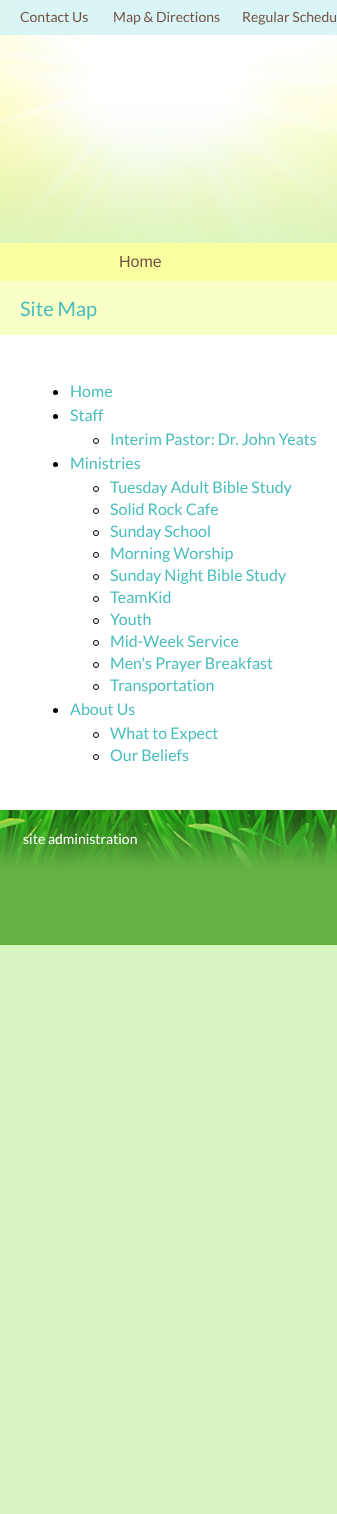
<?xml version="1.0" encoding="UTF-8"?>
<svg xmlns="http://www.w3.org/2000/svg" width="337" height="1514">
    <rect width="100%" height="100%" fill="#D9F5C1"/>
    <image x="0" y="0" width="337" height="243" href="img_01.png"/>
    <rect x="0" y="0" width="337" height="35" fill="#CFF2F2" fill-opacity="0.8"/>
    <text x="20" y="22" font-family="Lato" font-size="14" fill="#735347">Contact Us</text>
    <text x="113" y="22" font-family="Lato" font-size="14" fill="#735347">Map &amp; Directions</text>
    <text x="242" y="22" font-family="Lato" font-size="14" fill="#735347">Regular Schedu</text>
    <rect x="0" y="243" width="337" height="38" fill="#F9FF9E"/>
    <text x="119" y="267" font-family="Liberation Sans" font-size="16" fill="#735347">Home</text>
    <rect x="0" y="335" width="337" height="475" fill="#FFFFFF"/>
    <rect x="0" y="281" width="337" height="54" fill="#F8FFC7"/>
    <text x="20" y="316" font-family="Lato" font-size="20" fill="#4ABEBD">Site Map</text>
    <circle cx="55.5" cy="392.5" r="2.5" fill="#000000"/>
    <text x="70" y="397" font-family="Lato" font-size="16" fill="#4ABEBD">Home</text>
    <circle cx="55.5" cy="416.5" r="2.5" fill="#000000"/>
    <text x="70" y="421" font-family="Lato" font-size="16" fill="#4ABEBD">Staff</text>
    <circle cx="96" cy="441" r="2.5" fill="none" stroke="#000000"/>
    <text x="110" y="445" font-family="Lato" font-size="16" fill="#4ABEBD">Interim Pastor: Dr. John Yeats</text>
    <circle cx="55.5" cy="464.5" r="2.5" fill="#000000"/>
    <text x="70" y="469" font-family="Lato" font-size="16" fill="#4ABEBD">Ministries</text>
    <circle cx="96" cy="489" r="2.5" fill="none" stroke="#000000"/>
    <text x="110" y="493" font-family="Lato" font-size="16" fill="#4ABEBD">Tuesday Adult Bible Study</text>
    <circle cx="96" cy="511" r="2.5" fill="none" stroke="#000000"/>
    <text x="110" y="515" font-family="Lato" font-size="16" fill="#4ABEBD">Solid Rock Cafe</text>
    <circle cx="96" cy="533" r="2.5" fill="none" stroke="#000000"/>
    <text x="110" y="537" font-family="Lato" font-size="16" fill="#4ABEBD">Sunday School</text>
    <circle cx="96" cy="555" r="2.5" fill="none" stroke="#000000"/>
    <text x="110" y="559" font-family="Lato" font-size="16" fill="#4ABEBD">Morning Worship</text>
    <circle cx="96" cy="577" r="2.5" fill="none" stroke="#000000"/>
    <text x="110" y="581" font-family="Lato" font-size="16" fill="#4ABEBD">Sunday Night Bible Study</text>
    <circle cx="96" cy="599" r="2.5" fill="none" stroke="#000000"/>
    <text x="110" y="603" font-family="Lato" font-size="16" fill="#4ABEBD">TeamKid</text>
    <circle cx="96" cy="621" r="2.5" fill="none" stroke="#000000"/>
    <text x="110" y="625" font-family="Lato" font-size="16" fill="#4ABEBD">Youth</text>
    <circle cx="96" cy="643" r="2.5" fill="none" stroke="#000000"/>
    <text x="110" y="647" font-family="Lato" font-size="16" fill="#4ABEBD">Mid-Week Service</text>
    <circle cx="96" cy="665" r="2.5" fill="none" stroke="#000000"/>
    <text x="110" y="669" font-family="Lato" font-size="16" fill="#4ABEBD">Men's Prayer Breakfast</text>
    <circle cx="96" cy="687" r="2.5" fill="none" stroke="#000000"/>
    <text x="110" y="691" font-family="Lato" font-size="16" fill="#4ABEBD">Transportation</text>
    <circle cx="55.5" cy="710.5" r="2.5" fill="#000000"/>
    <text x="70" y="715" font-family="Lato" font-size="16" fill="#4ABEBD">About Us</text>
    <circle cx="96" cy="735" r="2.5" fill="none" stroke="#000000"/>
    <text x="110" y="739" font-family="Lato" font-size="16" fill="#4ABEBD">What to Expect</text>
    <circle cx="96" cy="757" r="2.5" fill="none" stroke="#000000"/>
    <text x="110" y="761" font-family="Lato" font-size="16" fill="#4ABEBD">Our Beliefs</text>
    <rect x="0" y="869" width="337" height="76" fill="#65B243"/>
    <image x="0" y="810" width="337" height="59" href="img_02.png"/>
    <text x="23" y="844" font-family="Lato" font-size="14" fill="#FFFFFF">site administration</text>
</svg>
